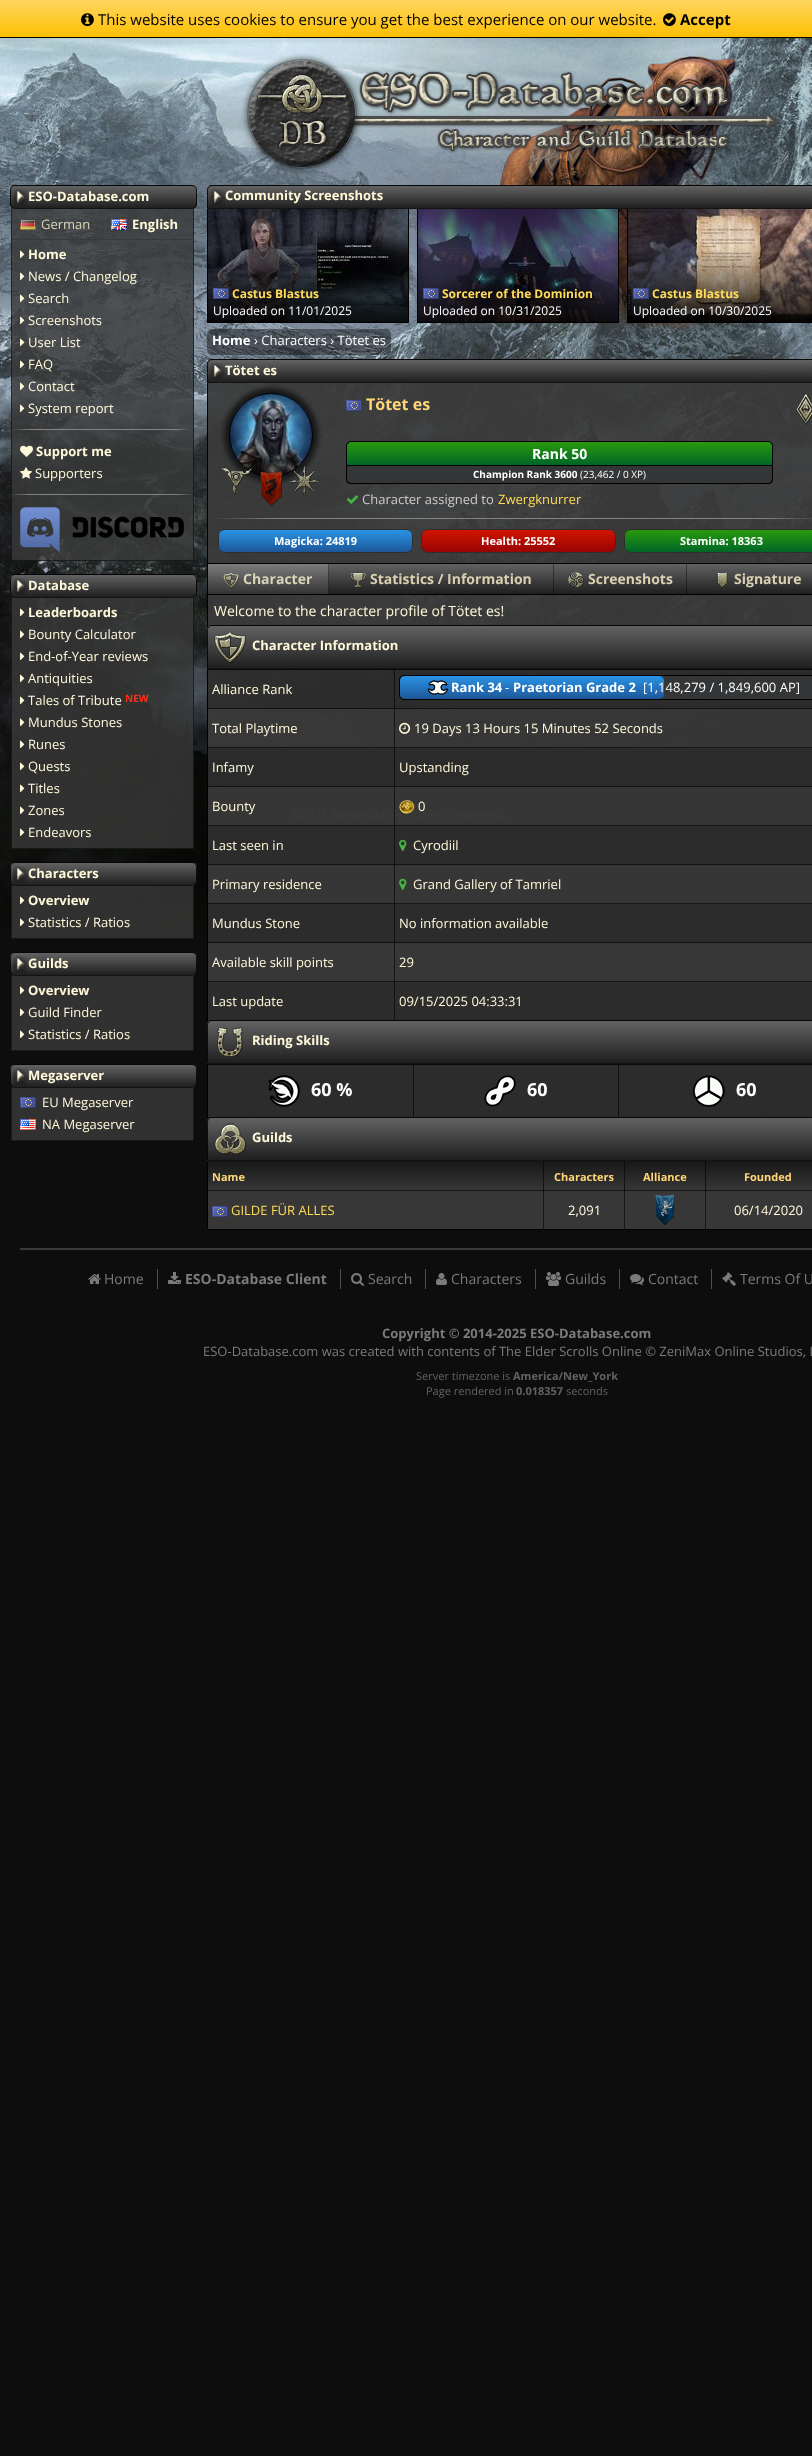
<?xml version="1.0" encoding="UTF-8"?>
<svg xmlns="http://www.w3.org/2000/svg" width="812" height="2456">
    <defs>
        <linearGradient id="g1" gradientUnits="userSpaceOnUse" x1="406" y1="0" x2="406" y2="37"><stop offset="0" stop-color="#FFD65E"/><stop offset="1" stop-color="#FEBF04"/></linearGradient>
        <clipPath id="clip1"><rect x="10" y="185" width="187" height="24" rx="5"/></clipPath>
        <linearGradient id="g2" gradientUnits="userSpaceOnUse" x1="104" y1="164" x2="104" y2="186"><stop offset="0" stop-color="#626262"/><stop offset="1" stop-color="#1F1F1F"/></linearGradient>
        <linearGradient id="g3" gradientUnits="userSpaceOnUse" x1="104" y1="186" x2="104" y2="208"><stop offset="0" stop-color="#626262"/><stop offset="1" stop-color="#1F1F1F"/></linearGradient>
        <linearGradient id="g4" gradientUnits="userSpaceOnUse" x1="104" y1="208" x2="104" y2="230"><stop offset="0" stop-color="#626262"/><stop offset="1" stop-color="#1F1F1F"/></linearGradient>
        <linearGradient id="g5" gradientUnits="userSpaceOnUse" x1="12" y1="430" x2="193" y2="430"><stop offset="0" stop-color="#393939"/><stop offset="0.1" stop-color="#838383"/><stop offset="0.9" stop-color="#838383"/><stop offset="1" stop-color="#393939"/></linearGradient>
        <linearGradient id="g6" gradientUnits="userSpaceOnUse" x1="12" y1="495" x2="193" y2="495"><stop offset="0" stop-color="#393939"/><stop offset="0.1" stop-color="#838383"/><stop offset="0.9" stop-color="#838383"/><stop offset="1" stop-color="#393939"/></linearGradient>
        <clipPath id="clip2"><rect x="10" y="574" width="187" height="24" rx="5"/></clipPath>
        <linearGradient id="g7" gradientUnits="userSpaceOnUse" x1="104" y1="553" x2="104" y2="575"><stop offset="0" stop-color="#626262"/><stop offset="1" stop-color="#1F1F1F"/></linearGradient>
        <linearGradient id="g8" gradientUnits="userSpaceOnUse" x1="104" y1="575" x2="104" y2="597"><stop offset="0" stop-color="#626262"/><stop offset="1" stop-color="#1F1F1F"/></linearGradient>
        <linearGradient id="g9" gradientUnits="userSpaceOnUse" x1="104" y1="597" x2="104" y2="619"><stop offset="0" stop-color="#626262"/><stop offset="1" stop-color="#1F1F1F"/></linearGradient>
        <clipPath id="clip3"><rect x="10" y="862" width="187" height="24" rx="5"/></clipPath>
        <linearGradient id="g10" gradientUnits="userSpaceOnUse" x1="104" y1="841" x2="104" y2="863"><stop offset="0" stop-color="#626262"/><stop offset="1" stop-color="#1F1F1F"/></linearGradient>
        <linearGradient id="g11" gradientUnits="userSpaceOnUse" x1="104" y1="863" x2="104" y2="885"><stop offset="0" stop-color="#626262"/><stop offset="1" stop-color="#1F1F1F"/></linearGradient>
        <linearGradient id="g12" gradientUnits="userSpaceOnUse" x1="104" y1="885" x2="104" y2="907"><stop offset="0" stop-color="#626262"/><stop offset="1" stop-color="#1F1F1F"/></linearGradient>
        <clipPath id="clip4"><rect x="10" y="952" width="187" height="24" rx="5"/></clipPath>
        <linearGradient id="g13" gradientUnits="userSpaceOnUse" x1="104" y1="931" x2="104" y2="953"><stop offset="0" stop-color="#626262"/><stop offset="1" stop-color="#1F1F1F"/></linearGradient>
        <linearGradient id="g14" gradientUnits="userSpaceOnUse" x1="104" y1="953" x2="104" y2="975"><stop offset="0" stop-color="#626262"/><stop offset="1" stop-color="#1F1F1F"/></linearGradient>
        <linearGradient id="g15" gradientUnits="userSpaceOnUse" x1="104" y1="975" x2="104" y2="997"><stop offset="0" stop-color="#626262"/><stop offset="1" stop-color="#1F1F1F"/></linearGradient>
        <clipPath id="clip5"><rect x="10" y="1064" width="187" height="24" rx="5"/></clipPath>
        <linearGradient id="g16" gradientUnits="userSpaceOnUse" x1="104" y1="1043" x2="104" y2="1065"><stop offset="0" stop-color="#626262"/><stop offset="1" stop-color="#1F1F1F"/></linearGradient>
        <linearGradient id="g17" gradientUnits="userSpaceOnUse" x1="104" y1="1065" x2="104" y2="1087"><stop offset="0" stop-color="#626262"/><stop offset="1" stop-color="#1F1F1F"/></linearGradient>
        <linearGradient id="g18" gradientUnits="userSpaceOnUse" x1="104" y1="1087" x2="104" y2="1109"><stop offset="0" stop-color="#626262"/><stop offset="1" stop-color="#1F1F1F"/></linearGradient>
        <clipPath id="clip6"><path d="M 212 185 H 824 C 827 185 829 187 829 190 V 209 H 207 V 190 C 207 187 209 185 212 185 Z"/></clipPath>
        <linearGradient id="g19" gradientUnits="userSpaceOnUse" x1="518" y1="164" x2="518" y2="186"><stop offset="0" stop-color="#626262"/><stop offset="1" stop-color="#1F1F1F"/></linearGradient>
        <linearGradient id="g20" gradientUnits="userSpaceOnUse" x1="518" y1="186" x2="518" y2="208"><stop offset="0" stop-color="#626262"/><stop offset="1" stop-color="#1F1F1F"/></linearGradient>
        <linearGradient id="g21" gradientUnits="userSpaceOnUse" x1="518" y1="208" x2="518" y2="230"><stop offset="0" stop-color="#626262"/><stop offset="1" stop-color="#1F1F1F"/></linearGradient>
        <clipPath id="clip7"><path d="M 212 359 H 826 C 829 359 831 361 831 364 V 383 H 207 V 364 C 207 361 209 359 212 359 Z"/></clipPath>
        <linearGradient id="g22" gradientUnits="userSpaceOnUse" x1="519" y1="338" x2="519" y2="360"><stop offset="0" stop-color="#626262"/><stop offset="1" stop-color="#1F1F1F"/></linearGradient>
        <filter id="blur1" x="-50%" y="-200%" width="200%" height="500%"><feGaussianBlur stdDeviation="2.5"/></filter>
        <linearGradient id="g23" gradientUnits="userSpaceOnUse" x1="519" y1="360" x2="519" y2="382"><stop offset="0" stop-color="#626262"/><stop offset="1" stop-color="#1F1F1F"/></linearGradient>
        <linearGradient id="g24" gradientUnits="userSpaceOnUse" x1="519" y1="382" x2="519" y2="404"><stop offset="0" stop-color="#626262"/><stop offset="1" stop-color="#1F1F1F"/></linearGradient>
        <linearGradient id="g25" gradientUnits="userSpaceOnUse" x1="560" y1="442" x2="560" y2="465"><stop offset="0" stop-color="#299A0B"/><stop offset="1" stop-color="#006628"/></linearGradient>
        <linearGradient id="g26" gradientUnits="userSpaceOnUse" x1="214" y1="519" x2="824" y2="519"><stop offset="0" stop-color="#393939"/><stop offset="0.1" stop-color="#838383"/><stop offset="0.9" stop-color="#838383"/><stop offset="1" stop-color="#393939"/></linearGradient>
        <clipPath id="clip8"><rect x="218" y="529" width="195" height="24" rx="7"/></clipPath>
        <linearGradient id="g27" gradientUnits="userSpaceOnUse" x1="316" y1="530" x2="316" y2="552"><stop offset="0" stop-color="#2993E5"/><stop offset="1" stop-color="#1E5799"/></linearGradient>
        <clipPath id="clip9"><rect x="421" y="529" width="195" height="24" rx="7"/></clipPath>
        <linearGradient id="g28" gradientUnits="userSpaceOnUse" x1="519" y1="530" x2="519" y2="552"><stop offset="0" stop-color="#D01500"/><stop offset="1" stop-color="#990303"/></linearGradient>
        <clipPath id="clip10"><rect x="624" y="529" width="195" height="24" rx="7"/></clipPath>
        <linearGradient id="g29" gradientUnits="userSpaceOnUse" x1="722" y1="530" x2="722" y2="552"><stop offset="0" stop-color="#299A0B"/><stop offset="1" stop-color="#006628"/></linearGradient>
        <linearGradient id="g30" gradientUnits="userSpaceOnUse" x1="268" y1="564" x2="268" y2="594"><stop offset="0" stop-color="#7C7C7C"/><stop offset="1" stop-color="#333333"/></linearGradient>
        <linearGradient id="g31" gradientUnits="userSpaceOnUse" x1="441" y1="564" x2="441" y2="594"><stop offset="0" stop-color="#626262"/><stop offset="1" stop-color="#1F1F1F"/></linearGradient>
        <linearGradient id="g32" gradientUnits="userSpaceOnUse" x1="620" y1="564" x2="620" y2="594"><stop offset="0" stop-color="#626262"/><stop offset="1" stop-color="#1F1F1F"/></linearGradient>
        <linearGradient id="g33" gradientUnits="userSpaceOnUse" x1="758" y1="564" x2="758" y2="594"><stop offset="0" stop-color="#626262"/><stop offset="1" stop-color="#1F1F1F"/></linearGradient>
        <clipPath id="clip11"><path d="M 212 625 H 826 C 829 625 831 627 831 630 V 669 H 207 V 630 C 207 627 209 625 212 625 Z"/></clipPath>
        <linearGradient id="g34" gradientUnits="userSpaceOnUse" x1="519" y1="584" x2="519" y2="626"><stop offset="0" stop-color="#626262"/><stop offset="1" stop-color="#1F1F1F"/></linearGradient>
        <linearGradient id="g35" gradientUnits="userSpaceOnUse" x1="519" y1="626" x2="519" y2="668"><stop offset="0" stop-color="#626262"/><stop offset="1" stop-color="#1F1F1F"/></linearGradient>
        <linearGradient id="g36" gradientUnits="userSpaceOnUse" x1="519" y1="668" x2="519" y2="710"><stop offset="0" stop-color="#626262"/><stop offset="1" stop-color="#1F1F1F"/></linearGradient>
        <linearGradient id="g37" gradientUnits="userSpaceOnUse" x1="532" y1="676" x2="532" y2="699"><stop offset="0" stop-color="#2993E5"/><stop offset="1" stop-color="#1E5799"/></linearGradient>
        <clipPath id="clip12"><path d="M 212 1020 H 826 C 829 1020 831 1022 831 1025 V 1064 H 207 V 1025 C 207 1022 209 1020 212 1020 Z"/></clipPath>
        <linearGradient id="g38" gradientUnits="userSpaceOnUse" x1="519" y1="979" x2="519" y2="1021"><stop offset="0" stop-color="#626262"/><stop offset="1" stop-color="#1F1F1F"/></linearGradient>
        <linearGradient id="g39" gradientUnits="userSpaceOnUse" x1="519" y1="1021" x2="519" y2="1063"><stop offset="0" stop-color="#626262"/><stop offset="1" stop-color="#1F1F1F"/></linearGradient>
        <linearGradient id="g40" gradientUnits="userSpaceOnUse" x1="519" y1="1063" x2="519" y2="1105"><stop offset="0" stop-color="#626262"/><stop offset="1" stop-color="#1F1F1F"/></linearGradient>
        <clipPath id="clip13"><path d="M 212 1117 H 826 C 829 1117 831 1119 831 1122 V 1161 H 207 V 1122 C 207 1119 209 1117 212 1117 Z"/></clipPath>
        <linearGradient id="g41" gradientUnits="userSpaceOnUse" x1="519" y1="1076" x2="519" y2="1118"><stop offset="0" stop-color="#626262"/><stop offset="1" stop-color="#1F1F1F"/></linearGradient>
        <linearGradient id="g42" gradientUnits="userSpaceOnUse" x1="519" y1="1118" x2="519" y2="1160"><stop offset="0" stop-color="#626262"/><stop offset="1" stop-color="#1F1F1F"/></linearGradient>
        <linearGradient id="g43" gradientUnits="userSpaceOnUse" x1="519" y1="1160" x2="519" y2="1202"><stop offset="0" stop-color="#626262"/><stop offset="1" stop-color="#1F1F1F"/></linearGradient>
        <linearGradient id="g44" gradientUnits="userSpaceOnUse" x1="376" y1="1162" x2="376" y2="1191"><stop offset="0" stop-color="#191919"/><stop offset="1" stop-color="#373737"/></linearGradient>
        <linearGradient id="g45" gradientUnits="userSpaceOnUse" x1="584" y1="1162" x2="584" y2="1191"><stop offset="0" stop-color="#191919"/><stop offset="1" stop-color="#373737"/></linearGradient>
        <linearGradient id="g46" gradientUnits="userSpaceOnUse" x1="665" y1="1162" x2="665" y2="1191"><stop offset="0" stop-color="#191919"/><stop offset="1" stop-color="#373737"/></linearGradient>
        <linearGradient id="g47" gradientUnits="userSpaceOnUse" x1="768" y1="1162" x2="768" y2="1191"><stop offset="0" stop-color="#191919"/><stop offset="1" stop-color="#373737"/></linearGradient>
    </defs>
    <rect width="100%" height="100%" fill="#0D0D0D"/>
    <image x="0" y="38" width="812" height="898" href="img_01.png"/>
    <rect x="0" y="0" width="812" height="37" fill="url(#g1)"/>
    <rect x="0" y="37" width="812" height="1" fill="#000000"/>
    <image x="81" y="13" width="13" height="14" href="img_02.png"/>
    <text x="98" y="25" font-family="Open Sans" font-size="15" fill="#000000">This website uses cookies to ensure you get the best experience on our website.</text>
    <image x="663" y="13" width="13" height="14" href="img_03.png"/>
    <text x="680" y="25" font-family="Open Sans" font-size="15" font-weight="700" fill="#000000">Accept</text>
    <image x="241" y="53" width="535" height="121" href="img_04.png"/>
    <g clip-path="url(#clip1)">
        <rect x="10" y="185" width="187" height="1" fill="url(#g2)"/>
        <rect x="10" y="186" width="187" height="22" fill="url(#g3)"/>
    </g>
    <rect x="11" y="208" width="183" height="353" fill="#3A3A3A" fill-opacity="0.8"/>
    <rect x="11.5" y="208.5" width="182" height="352" fill="none" stroke="#000000" stroke-opacity="0.5"/>
    <g clip-path="url(#clip1)">
        <rect x="10" y="208" width="187" height="1" fill="url(#g4)"/>
    </g>
    <rect x="10.5" y="185.5" width="186" height="23" rx="4.5" fill="none" stroke="#000000" stroke-opacity="0.8"/>
    <image x="13" y="189" width="15" height="17" href="img_05.png"/>
    <text x="28" y="201" font-family="Open Sans" font-size="13" font-weight="700" fill="#FFF9DA">ESO-Database.com</text>
    <rect x="12" y="239" width="182" height="1" fill="#393939"/>
    <image x="20" y="219" width="16" height="11" href="img_06.png"/>
    <text x="41" y="229" font-family="Open Sans" font-size="13" fill="#D8D4B8">German</text>
    <image x="111" y="219" width="16" height="11" href="img_07.png"/>
    <text x="132" y="229" font-family="Open Sans" font-size="13" font-weight="700" fill="#FFF9DA">English</text>
    <image x="20" y="250" width="5" height="8" href="img_08.png"/>
    <text x="28" y="259" font-family="Open Sans" font-size="13" font-weight="700" fill="#FFF9DA">Home</text>
    <image x="20" y="272" width="5" height="8" href="img_09.png"/>
    <text x="28" y="281" font-family="Open Sans" font-size="13" fill="#FFF9DA">News / Changelog</text>
    <image x="20" y="294" width="5" height="8" href="img_10.png"/>
    <text x="28" y="303" font-family="Open Sans" font-size="13" fill="#FFF9DA">Search</text>
    <image x="20" y="316" width="5" height="8" href="img_11.png"/>
    <text x="28" y="325" font-family="Open Sans" font-size="13" fill="#FFF9DA">Screenshots</text>
    <image x="20" y="338" width="5" height="8" href="img_12.png"/>
    <text x="28" y="347" font-family="Open Sans" font-size="13" fill="#FFF9DA">User List</text>
    <image x="20" y="360" width="5" height="8" href="img_13.png"/>
    <text x="28" y="369" font-family="Open Sans" font-size="13" fill="#FFF9DA">FAQ</text>
    <image x="20" y="382" width="5" height="8" href="img_14.png"/>
    <text x="28" y="391" font-family="Open Sans" font-size="13" fill="#FFF9DA">Contact</text>
    <image x="20" y="404" width="5" height="8" href="img_15.png"/>
    <text x="28" y="413" font-family="Open Sans" font-size="13" fill="#FFF9DA">System report</text>
    <rect x="12" y="429" width="181" height="1" fill="url(#g5)"/>
    <image x="20" y="445" width="13" height="12" href="img_16.png"/>
    <text x="36" y="456" font-family="Open Sans" font-size="13" font-weight="700" fill="#FFF9DA">Support me</text>
    <image x="20" y="467" width="12" height="12" href="img_17.png"/>
    <text x="35" y="478" font-family="Open Sans" font-size="13" fill="#FFF9DA">Supporters</text>
    <rect x="12" y="494" width="181" height="1" fill="url(#g6)"/>
    <image x="20" y="507" width="164" height="46" href="img_18.png"/>
    <g clip-path="url(#clip2)">
        <rect x="10" y="574" width="187" height="1" fill="url(#g7)"/>
        <rect x="10" y="575" width="187" height="22" fill="url(#g8)"/>
    </g>
    <rect x="11" y="597" width="183" height="252" fill="#3A3A3A" fill-opacity="0.8"/>
    <rect x="11.5" y="597.5" width="182" height="251" fill="none" stroke="#000000" stroke-opacity="0.5"/>
    <g clip-path="url(#clip2)">
        <rect x="10" y="597" width="187" height="1" fill="url(#g9)"/>
    </g>
    <rect x="10.5" y="574.5" width="186" height="23" rx="4.5" fill="none" stroke="#000000" stroke-opacity="0.8"/>
    <image x="13" y="578" width="15" height="17" href="img_05.png"/>
    <text x="28" y="590" font-family="Open Sans" font-size="13" font-weight="700" fill="#FFF9DA">Database</text>
    <image x="20" y="608" width="5" height="8" href="img_19.png"/>
    <text x="28" y="617" font-family="Open Sans" font-size="13" font-weight="700" fill="#FFF9DA">Leaderboards</text>
    <image x="20" y="630" width="5" height="8" href="img_20.png"/>
    <text x="28" y="639" font-family="Open Sans" font-size="13" fill="#FFF9DA">Bounty Calculator</text>
    <image x="20" y="652" width="5" height="8" href="img_21.png"/>
    <text x="28" y="661" font-family="Open Sans" font-size="13" fill="#FFF9DA">End-of-Year reviews</text>
    <image x="20" y="674" width="5" height="8" href="img_22.png"/>
    <text x="28" y="683" font-family="Open Sans" font-size="13" fill="#FFF9DA">Antiquities</text>
    <image x="20" y="696" width="5" height="8" href="img_23.png"/>
    <text x="28" y="705" font-family="Open Sans" font-size="13" fill="#FFF9DA">Tales of Tribute</text>
    <text x="125" y="702" font-family="Open Sans" font-size="10" font-weight="700" fill="#FF3019">NEW</text>
    <image x="20" y="718" width="5" height="8" href="img_24.png"/>
    <text x="28" y="727" font-family="Open Sans" font-size="13" fill="#FFF9DA">Mundus Stones</text>
    <image x="20" y="740" width="5" height="8" href="img_25.png"/>
    <text x="28" y="749" font-family="Open Sans" font-size="13" fill="#FFF9DA">Runes</text>
    <image x="20" y="762" width="5" height="8" href="img_26.png"/>
    <text x="28" y="771" font-family="Open Sans" font-size="13" fill="#FFF9DA">Quests</text>
    <image x="20" y="784" width="5" height="8" href="img_27.png"/>
    <text x="28" y="793" font-family="Open Sans" font-size="13" fill="#FFF9DA">Titles</text>
    <image x="20" y="806" width="5" height="8" href="img_28.png"/>
    <text x="28" y="815" font-family="Open Sans" font-size="13" fill="#FFF9DA">Zones</text>
    <image x="20" y="828" width="5" height="8" href="img_29.png"/>
    <text x="28" y="837" font-family="Open Sans" font-size="13" fill="#FFF9DA">Endeavors</text>
    <g clip-path="url(#clip3)">
        <rect x="10" y="862" width="187" height="1" fill="url(#g10)"/>
        <rect x="10" y="863" width="187" height="22" fill="url(#g11)"/>
    </g>
    <rect x="11" y="885" width="183" height="54" fill="#3A3A3A" fill-opacity="0.8"/>
    <rect x="11.5" y="885.5" width="182" height="53" fill="none" stroke="#000000" stroke-opacity="0.5"/>
    <g clip-path="url(#clip3)">
        <rect x="10" y="885" width="187" height="1" fill="url(#g12)"/>
    </g>
    <rect x="10.5" y="862.5" width="186" height="23" rx="4.5" fill="none" stroke="#000000" stroke-opacity="0.8"/>
    <image x="13" y="866" width="15" height="17" href="img_05.png"/>
    <text x="28" y="878" font-family="Open Sans" font-size="13" font-weight="700" fill="#FFF9DA">Characters</text>
    <image x="20" y="896" width="5" height="8" href="img_30.png"/>
    <text x="28" y="905" font-family="Open Sans" font-size="13" font-weight="700" fill="#FFF9DA">Overview</text>
    <image x="20" y="918" width="5" height="8" href="img_31.png"/>
    <text x="28" y="927" font-family="Open Sans" font-size="13" fill="#FFF9DA">Statistics / Ratios</text>
    <g clip-path="url(#clip4)">
        <rect x="10" y="952" width="187" height="1" fill="url(#g13)"/>
        <rect x="10" y="953" width="187" height="22" fill="url(#g14)"/>
    </g>
    <rect x="11.5" y="975.5" width="182" height="75" fill="#313131" stroke="#191919"/>
    <g clip-path="url(#clip4)">
        <rect x="10" y="975" width="187" height="1" fill="url(#g15)"/>
    </g>
    <rect x="10.5" y="952.5" width="186" height="23" rx="4.5" fill="none" stroke="#000000" stroke-opacity="0.8"/>
    <image x="13" y="956" width="15" height="17" href="img_05.png"/>
    <text x="28" y="968" font-family="Open Sans" font-size="13" font-weight="700" fill="#FFF9DA">Guilds</text>
    <image x="20" y="986" width="5" height="8" href="img_32.png"/>
    <text x="28" y="995" font-family="Open Sans" font-size="13" font-weight="700" fill="#FFF9DA">Overview</text>
    <image x="20" y="1008" width="5" height="8" href="img_32.png"/>
    <text x="28" y="1017" font-family="Open Sans" font-size="13" fill="#FFF9DA">Guild Finder</text>
    <image x="20" y="1030" width="5" height="8" href="img_32.png"/>
    <text x="28" y="1039" font-family="Open Sans" font-size="13" fill="#FFF9DA">Statistics / Ratios</text>
    <g clip-path="url(#clip5)">
        <rect x="10" y="1064" width="187" height="1" fill="url(#g16)"/>
        <rect x="10" y="1065" width="187" height="22" fill="url(#g17)"/>
    </g>
    <rect x="11.5" y="1087.5" width="182" height="53" fill="#313131" stroke="#191919"/>
    <g clip-path="url(#clip5)">
        <rect x="10" y="1087" width="187" height="1" fill="url(#g18)"/>
    </g>
    <rect x="10.5" y="1064.5" width="186" height="23" rx="4.5" fill="none" stroke="#000000" stroke-opacity="0.8"/>
    <image x="13" y="1068" width="15" height="17" href="img_05.png"/>
    <text x="28" y="1080" font-family="Open Sans" font-size="13" font-weight="700" fill="#FFF9DA">Megaserver</text>
    <image x="20" y="1097" width="16" height="11" href="img_33.png"/>
    <text x="42" y="1107" font-family="Open Sans" font-size="13" fill="#FFF9DA">EU Megaserver</text>
    <image x="20" y="1119" width="16" height="11" href="img_34.png"/>
    <text x="42" y="1129" font-family="Open Sans" font-size="13" fill="#FFF9DA">NA Megaserver</text>
    <g clip-path="url(#clip6)">
        <rect x="207" y="185" width="605" height="1" fill="url(#g19)"/>
        <rect x="207" y="186" width="605" height="22" fill="url(#g20)"/>
    </g>
    <rect x="207" y="208" width="605" height="1" fill="url(#g21)"/>
    <path d="M 212 185.5 H 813 C 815.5 185.5 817.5 187.5 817.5 190 V 208.5 H 207.5 V 190 C 207.5 187.5 209.5 185.5 212 185.5 Z" fill="none" stroke="#000000" stroke-opacity="0.8"/>
    <image x="210" y="189" width="15" height="17" href="img_05.png"/>
    <text x="225" y="200" font-family="Open Sans" font-size="13" font-weight="700" fill="#FFF9DA">Community Screenshots</text>
    <rect x="408" y="209" width="1" height="114" fill="#000000"/>
    <rect x="207" y="322" width="202" height="1" fill="#000000"/>
    <rect x="207" y="209" width="1" height="114" fill="#000000"/>
    <image x="208" y="209" width="200" height="113" href="img_35.png"/>
    <image x="213" y="288" width="16" height="11" href="img_33.png"/>
    <text x="232" y="298" font-family="Open Sans" font-size="12" font-weight="700" fill="#FFDC58">Castus Blastus</text>
    <text x="213" y="315" font-family="Open Sans" font-size="12" fill="#FFFFFF">Uploaded on 11/01/2025</text>
    <rect x="618" y="209" width="1" height="114" fill="#000000"/>
    <rect x="417" y="322" width="202" height="1" fill="#000000"/>
    <rect x="417" y="209" width="1" height="114" fill="#000000"/>
    <image x="418" y="209" width="200" height="113" href="img_36.png"/>
    <image x="423" y="288" width="16" height="11" href="img_33.png"/>
    <text x="442" y="298" font-family="Open Sans" font-size="12" font-weight="700" fill="#FFDC58">Sorcerer of the Dominion</text>
    <text x="423" y="315" font-family="Open Sans" font-size="12" fill="#FFFFFF">Uploaded on 10/31/2025</text>
    <rect x="627" y="322" width="185" height="1" fill="#000000"/>
    <rect x="627" y="209" width="1" height="114" fill="#000000"/>
    <image x="628" y="209" width="184" height="113" href="img_37.png"/>
    <image x="633" y="288" width="16" height="11" href="img_33.png"/>
    <text x="652" y="298" font-family="Open Sans" font-size="12" font-weight="700" fill="#FFDC58">Castus Blastus</text>
    <text x="633" y="315" font-family="Open Sans" font-size="12" fill="#FFFFFF">Uploaded on 10/30/2025</text>
    <rect x="207" y="329" width="184" height="26" rx="5" fill="#000000" fill-opacity="0.4"/>
    <text x="212" y="345" font-family="Open Sans" font-size="13" font-weight="700" fill="#FFFFFF">Home</text>
    <text x="254" y="345" font-family="Open Sans" font-size="13" fill="#FFFFFF">› Characters › Tötet es</text>
    <path d="M 212 359.5 H 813 C 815.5 359.5 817.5 361.5 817.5 364 V 1229.5 H 207.5 V 364 C 207.5 361.5 209.5 359.5 212 359.5 Z" fill="#3B3B3B" fill-opacity="0.92" stroke="#000000"/>
    <g clip-path="url(#clip7)">
        <rect x="207" y="359" width="605" height="1" fill="url(#g22)"/>
    </g>
    <rect x="224" y="388" width="94" height="94" rx="47" fill="#000000" fill-opacity="0.6" filter="url(#blur1)"/>
    <g clip-path="url(#clip7)">
        <rect x="207" y="360" width="605" height="22" fill="url(#g23)"/>
    </g>
    <rect x="207" y="382" width="605" height="1" fill="url(#g24)"/>
    <path d="M 212 359.5 H 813 C 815.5 359.5 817.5 361.5 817.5 364 V 382.5 H 207.5 V 364 C 207.5 361.5 209.5 359.5 212 359.5 Z" fill="none" stroke="#000000" stroke-opacity="0.8"/>
    <image x="210" y="363" width="15" height="17" href="img_05.png"/>
    <text x="225" y="375" font-family="Open Sans" font-size="13" font-weight="700" fill="#FFF9DA">Tötet es</text>
    <image x="230" y="394" width="82" height="82" href="img_38.png"/>
    <circle cx="271" cy="435" r="41.5" fill="none" stroke="#000000"/>
    <image x="220" y="467" width="32" height="28" href="img_39.png"/>
    <image x="260" y="471" width="23" height="36" href="img_40.png"/>
    <image x="289" y="466" width="31" height="31" href="img_41.png"/>
    <image x="346" y="400" width="16" height="11" href="img_33.png"/>
    <text x="366" y="410" font-family="Open Sans" font-size="16" font-weight="700" fill="#FFD776">Tötet es</text>
    <image x="796" y="393" width="16" height="32" href="img_42.png"/>
    <path d="M 351 441.5 H 768 C 770.5 441.5 772.5 443.5 772.5 446 V 465.5 H 346.5 V 446 C 346.5 443.5 348.5 441.5 351 441.5 Z" fill="#343537" stroke="#000000"/>
    <path d="M 352 442 H 767 C 770 442 772 444 772 447 V 465 H 347 V 447 C 347 444 349 442 352 442 Z" fill="url(#g25)"/>
    <text x="532" y="459" font-family="Open Sans" font-size="14" font-weight="700" fill="#FFFFFF">Rank 50</text>
    <path d="M 346 466 H 773 V 479 C 773 482 771 484 768 484 H 351 C 348 484 346 482 346 479 Z" fill="#343537"/>
    <path d="M 346 466 H 773 V 479 C 773 482 771 484 768 484 H 351 C 348 484 346 482 346 479 Z M 347 466 H 772 V 479 C 772 481 770 483 768 483 H 351 C 349 483 347 481 347 479 Z" fill="#000000" fill-rule="evenodd"/>
    <text x="473" y="478" font-family="Open Sans" font-size="10" font-weight="700" fill="#FFFFFF">Champion Rank 3600</text>
    <text x="580" y="478" font-family="Open Sans" font-size="10" fill="#FFFFFF">(23,462 / 0 XP)</text>
    <image x="346" y="495" width="12" height="9" href="img_43.png"/>
    <text x="362" y="504" font-family="Open Sans" font-size="13" fill="#CCCCCC">Character assigned to</text>
    <text x="498" y="504" font-family="Open Sans" font-size="13" fill="#FFDC58">Zwergknurrer</text>
    <rect x="214" y="518" width="598" height="1" fill="url(#g26)"/>
    <g clip-path="url(#clip8)">
        <rect x="218" y="530" width="195" height="22" fill="url(#g27)"/>
    </g>
    <rect x="218.5" y="529.5" width="194" height="23" rx="6.5" fill="none" stroke="#2E2E2E"/>
    <text x="274" y="545" font-family="Open Sans" font-size="11" font-weight="700" fill="#FFFFFF">Magicka: 24819</text>
    <g clip-path="url(#clip9)">
        <rect x="421" y="530" width="195" height="22" fill="url(#g28)"/>
    </g>
    <rect x="421.5" y="529.5" width="194" height="23" rx="6.5" fill="none" stroke="#2E2E2E"/>
    <text x="481" y="545" font-family="Open Sans" font-size="11" font-weight="700" fill="#FFFFFF">Health: 25552</text>
    <g clip-path="url(#clip10)">
        <rect x="624" y="530" width="188" height="22" fill="url(#g29)"/>
    </g>
    <rect x="624.5" y="529.5" width="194" height="23" rx="6.5" fill="none" stroke="#2E2E2E"/>
    <text x="680" y="545" font-family="Open Sans" font-size="11" font-weight="700" fill="#FFFFFF">Stamina: 18363</text>
    <rect x="208" y="563" width="604" height="1" fill="#000000"/>
    <rect x="208" y="594" width="604" height="1" fill="#000000"/>
    <rect x="208" y="564" width="121" height="30" fill="url(#g30)"/>
    <rect x="328" y="564" width="1" height="30" fill="#000000" fill-opacity="0.4"/>
    <image x="223" y="572" width="16" height="16" href="img_44.png"/>
    <text x="243" y="584" font-family="Open Sans" font-size="14" font-weight="700" fill="#D8D4B8">Character</text>
    <rect x="329" y="564" width="225" height="30" fill="url(#g31)"/>
    <rect x="553" y="564" width="1" height="30" fill="#000000" fill-opacity="0.4"/>
    <image x="350" y="572" width="16" height="16" href="img_45.png"/>
    <text x="370" y="584" font-family="Open Sans" font-size="14" font-weight="700" fill="#D8D0B0">Statistics / Information</text>
    <rect x="554" y="564" width="133" height="30" fill="url(#g32)"/>
    <rect x="686" y="564" width="1" height="30" fill="#000000" fill-opacity="0.4"/>
    <image x="568" y="572" width="16" height="16" href="img_46.png"/>
    <text x="588" y="584" font-family="Open Sans" font-size="14" font-weight="700" fill="#D8D0B0">Screenshots</text>
    <rect x="687" y="564" width="125" height="30" fill="url(#g33)"/>
    <image x="717" y="572" width="11" height="16" href="img_47.png"/>
    <text x="734" y="584" font-family="Open Sans" font-size="14" font-weight="700" fill="#D8D0B0">Signature</text>
    <text x="214" y="616" font-family="Open Sans" font-size="14" fill="#FFF9DA">Welcome to the character profile of Tötet es!</text>
    <g clip-path="url(#clip11)">
        <rect x="207" y="625" width="605" height="1" fill="url(#g34)"/>
        <rect x="207" y="626" width="605" height="42" fill="url(#g35)"/>
    </g>
    <rect x="207" y="668" width="605" height="1" fill="url(#g36)"/>
    <path d="M 212 625.5 H 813 C 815.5 625.5 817.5 627.5 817.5 630 V 668.5 H 207.5 V 630 C 207.5 627.5 209.5 625.5 212 625.5 Z" fill="none" stroke="#000000" stroke-opacity="0.8"/>
    <image x="214" y="631" width="32" height="32" href="img_48.png"/>
    <text x="252" y="650" font-family="Open Sans" font-size="13" font-weight="700" fill="#FFF9DA">Character Information</text>
    <rect x="208" y="669" width="186" height="1" fill="#000000" fill-opacity="0.6"/>
    <rect x="208" y="1020" width="4" height="1" fill="#121212"/>
    <rect x="208" y="670" width="187" height="39" fill="#000000" fill-opacity="0.2"/>
    <rect x="394" y="669" width="418" height="1" fill="#090909"/>
    <rect x="208" y="669" width="187" height="1" fill="#000000" fill-opacity="0.6"/>
    <rect x="394" y="708" width="418" height="1" fill="#121212"/>
    <rect x="208" y="708" width="187" height="1" fill="#000000" fill-opacity="0.6"/>
    <rect x="394" y="747" width="418" height="1" fill="#161616"/>
    <rect x="208" y="747" width="187" height="1" fill="#000000" fill-opacity="0.6"/>
    <rect x="208" y="748" width="187" height="39" fill="#000000" fill-opacity="0.2"/>
    <rect x="394" y="786" width="418" height="1" fill="#111211"/>
    <rect x="208" y="786" width="187" height="1" fill="#000000" fill-opacity="0.6"/>
    <rect x="394" y="825" width="418" height="1" fill="#161616"/>
    <rect x="208" y="825" width="187" height="1" fill="#000000" fill-opacity="0.6"/>
    <rect x="208" y="826" width="187" height="39" fill="#2C2C2C"/>
    <rect x="394" y="864" width="418" height="1" fill="#121212"/>
    <rect x="208" y="864" width="187" height="1" fill="#000000" fill-opacity="0.6"/>
    <rect x="394" y="903" width="418" height="1" fill="#161616"/>
    <rect x="208" y="903" width="187" height="1" fill="#000000" fill-opacity="0.6"/>
    <rect x="208" y="904" width="187" height="39" fill="#2C2C2C"/>
    <rect x="394" y="942" width="418" height="1" fill="#121212"/>
    <rect x="208" y="942" width="187" height="1" fill="#000000" fill-opacity="0.6"/>
    <rect x="394" y="981" width="418" height="1" fill="#161616"/>
    <rect x="208" y="981" width="187" height="1" fill="#000000" fill-opacity="0.6"/>
    <rect x="208" y="982" width="604" height="38" fill="#2C2C2C"/>
    <rect x="394" y="981" width="1" height="40" fill="#000000" fill-opacity="0.6"/>
    <rect x="394" y="942" width="1" height="40" fill="#000000" fill-opacity="0.6"/>
    <rect x="394" y="903" width="1" height="40" fill="#000000" fill-opacity="0.6"/>
    <rect x="394" y="864" width="1" height="40" fill="#000000" fill-opacity="0.6"/>
    <rect x="394" y="825" width="1" height="40" fill="#000000" fill-opacity="0.6"/>
    <rect x="394" y="786" width="1" height="40" fill="#000000" fill-opacity="0.6"/>
    <rect x="394" y="747" width="1" height="40" fill="#000000" fill-opacity="0.6"/>
    <rect x="394" y="708" width="1" height="40" fill="#000000" fill-opacity="0.6"/>
    <rect x="394" y="669" width="1" height="40" fill="#000000" fill-opacity="0.6"/>
    <text x="212" y="694" font-family="Open Sans" font-size="13" fill="#FFF9DA">Alliance Rank</text>
    <rect x="395" y="670" width="417" height="38" fill="#000000" fill-opacity="0.2"/>
    <rect x="399.5" y="675.5" width="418" height="24" rx="4.5" fill="#343537" stroke="#000000"/>
    <rect x="400" y="676" width="264" height="23" rx="5" fill="url(#g37)"/>
    <image x="427" y="680" width="22" height="15" href="img_49.png"/>
    <text x="451" y="692" font-family="Open Sans" font-size="13" font-weight="700" fill="#FFFFFF">Rank 34</text>
    <text x="505" y="692" font-family="Open Sans" font-size="13" fill="#FFFFFF">-</text>
    <text x="513" y="692" font-family="Open Sans" font-size="13" font-weight="700" fill="#FFFFFF">Praetorian Grade 2</text>
    <text x="643" y="692" font-family="Open Sans" font-size="13" fill="#FFFFFF">[1,148,279 / 1,849,600 AP]</text>
    <text x="212" y="733" font-family="Open Sans" font-size="13" fill="#FFF9DA">Total Playtime</text>
    <image x="399" y="722" width="12" height="12" href="img_50.png"/>
    <text x="414" y="733" font-family="Open Sans" font-size="13" fill="#FFF9DA">19 Days 13 Hours 15 Minutes 52 Seconds</text>
    <text x="212" y="772" font-family="Open Sans" font-size="13" fill="#FFF9DA">Infamy</text>
    <rect x="395" y="748" width="417" height="38" fill="#000000" fill-opacity="0.2"/>
    <text x="399" y="772" font-family="Open Sans" font-size="13" fill="#FFF9DA">Upstanding</text>
    <text x="212" y="811" font-family="Open Sans" font-size="13" fill="#FFF9DA">Bounty</text>
    <image x="399" y="800" width="16" height="14" href="img_51.png"/>
    <text x="418" y="811" font-family="Open Sans" font-size="13" fill="#FFF9DA">0</text>
    <text x="212" y="850" font-family="Open Sans" font-size="13" fill="#FFF9DA">Last seen in</text>
    <rect x="395" y="826" width="417" height="38" fill="#2C2C2C"/>
    <image x="399" y="839" width="8" height="12" href="img_52.png"/>
    <text x="413" y="850" font-family="Open Sans" font-size="13" fill="#FFF9DA">Cyrodiil</text>
    <text x="212" y="889" font-family="Open Sans" font-size="13" fill="#FFF9DA">Primary residence</text>
    <image x="399" y="878" width="8" height="12" href="img_53.png"/>
    <text x="413" y="889" font-family="Open Sans" font-size="13" fill="#FFF9DA">Grand Gallery of Tamriel</text>
    <text x="212" y="928" font-family="Open Sans" font-size="13" fill="#FFF9DA">Mundus Stone</text>
    <rect x="395" y="904" width="417" height="38" fill="#2C2C2C"/>
    <text x="399" y="928" font-family="Open Sans" font-size="13" fill="#FFF9DA">No information available</text>
    <text x="212" y="967" font-family="Open Sans" font-size="13" fill="#FFF9DA">Available skill points</text>
    <text x="399" y="967" font-family="Open Sans" font-size="13" fill="#FFF9DA">29</text>
    <text x="212" y="1006" font-family="Open Sans" font-size="13" fill="#FFF9DA">Last update</text>
    <text x="399" y="1006" font-family="Open Sans" font-size="13" fill="#FFF9DA">09/15/2025 04:33:31</text>
    <g clip-path="url(#clip12)">
        <rect x="207" y="1020" width="605" height="1" fill="url(#g38)"/>
        <rect x="207" y="1021" width="605" height="42" fill="url(#g39)"/>
    </g>
    <rect x="207" y="1063" width="605" height="1" fill="url(#g40)"/>
    <path d="M 212 1020.5 H 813 C 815.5 1020.5 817.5 1022.5 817.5 1025 V 1063.5 H 207.5 V 1025 C 207.5 1022.5 209.5 1020.5 212 1020.5 Z" fill="none" stroke="#000000" stroke-opacity="0.8"/>
    <image x="217" y="1027" width="26" height="30" href="img_54.png"/>
    <text x="252" y="1045" font-family="Open Sans" font-size="13" font-weight="700" fill="#FFF9DA">Riding Skills</text>
    <rect x="208" y="1064" width="410" height="1" fill="#161616"/>
    <rect x="208" y="1117" width="4" height="1" fill="#121212"/>
    <rect x="208" y="1065" width="604" height="52" fill="#2C2C2C"/>
    <rect x="618" y="1064" width="194" height="1" fill="#090909"/>
    <rect x="413" y="1064" width="206" height="1" fill="#000000" fill-opacity="0.6"/>
    <rect x="208" y="1064" width="206" height="1" fill="#000000" fill-opacity="0.6"/>
    <rect x="413" y="1064" width="1" height="54" fill="#000000" fill-opacity="0.6"/>
    <image x="268" y="1075" width="32" height="32" href="img_55.png"/>
    <text x="311" y="1096" font-family="Open Sans" font-size="18" font-weight="700" fill="#FFFFFF">60 %</text>
    <rect x="618" y="1064" width="1" height="54" fill="#000000" fill-opacity="0.6"/>
    <image x="484" y="1075" width="32" height="32" href="img_56.png"/>
    <text x="527" y="1096" font-family="Open Sans" font-size="18" font-weight="700" fill="#FFFFFF">60</text>
    <image x="693" y="1075" width="32" height="32" href="img_57.png"/>
    <text x="736" y="1096" font-family="Open Sans" font-size="18" font-weight="700" fill="#FFFFFF">60</text>
    <g clip-path="url(#clip13)">
        <rect x="207" y="1117" width="605" height="1" fill="url(#g41)"/>
        <rect x="207" y="1118" width="605" height="42" fill="url(#g42)"/>
    </g>
    <rect x="207" y="1160" width="605" height="1" fill="url(#g43)"/>
    <path d="M 212 1117.5 H 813 C 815.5 1117.5 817.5 1119.5 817.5 1122 V 1160.5 H 207.5 V 1122 C 207.5 1119.5 209.5 1117.5 212 1117.5 Z" fill="none" stroke="#000000" stroke-opacity="0.8"/>
    <image x="214" y="1123" width="32" height="32" href="img_58.png"/>
    <text x="252" y="1142" font-family="Open Sans" font-size="13" font-weight="700" fill="#FFF9DA">Guilds</text>
    <rect x="208" y="1161" width="604" height="1" fill="#161616"/>
    <rect x="208" y="1162" width="336" height="27" fill="url(#g44)"/>
    <rect x="705" y="1190" width="107" height="1" fill="#161616"/>
    <rect x="624" y="1190" width="82" height="1" fill="#000000" fill-opacity="0.6"/>
    <rect x="543" y="1190" width="82" height="1" fill="#000000" fill-opacity="0.6"/>
    <rect x="208" y="1190" width="336" height="1" fill="#000000" fill-opacity="0.6"/>
    <rect x="543" y="1190" width="1" height="40" fill="#000000" fill-opacity="0.6"/>
    <rect x="543" y="1161" width="1" height="30" fill="#000000" fill-opacity="0.6"/>
    <text x="212" y="1181" font-family="Open Sans" font-size="11" font-weight="700" fill="#FFD776">Name</text>
    <rect x="544" y="1162" width="81" height="27" fill="url(#g45)"/>
    <rect x="624" y="1190" width="1" height="40" fill="#000000" fill-opacity="0.6"/>
    <rect x="624" y="1161" width="1" height="30" fill="#000000" fill-opacity="0.6"/>
    <text x="554" y="1181" font-family="Open Sans" font-size="11" font-weight="700" fill="#FFD776">Characters</text>
    <rect x="625" y="1162" width="81" height="27" fill="url(#g46)"/>
    <rect x="705" y="1190" width="1" height="40" fill="#000000" fill-opacity="0.6"/>
    <rect x="705" y="1161" width="1" height="30" fill="#000000" fill-opacity="0.6"/>
    <text x="643" y="1181" font-family="Open Sans" font-size="11" font-weight="700" fill="#FFD776">Alliance</text>
    <rect x="706" y="1162" width="106" height="27" fill="url(#g47)"/>
    <text x="744" y="1181" font-family="Open Sans" font-size="11" font-weight="700" fill="#FFD776">Founded</text>
    <image x="212" y="1206" width="16" height="11" href="img_33.png"/>
    <text x="231" y="1215" font-family="Open Sans" font-size="13" fill="#FFDC58">GILDE FÜR ALLES</text>
    <text x="568" y="1215" font-family="Open Sans" font-size="13" fill="#FFF9DA">2,091</text>
    <image x="655" y="1194" width="20" height="31" href="img_59.png"/>
    <text x="734" y="1215" font-family="Open Sans" font-size="13" fill="#FFF9DA">06/14/2020</text>
    <rect x="20" y="1248" width="792" height="2" fill="#3A3A3A"/>
    <image x="88" y="1274" width="13" height="10" href="img_60.png"/>
    <text x="104" y="1284" font-family="Open Sans" font-size="14" fill="#7B7B7B">Home</text>
    <rect x="157" y="1269" width="1" height="20" fill="#4F4F4F"/>
    <image x="168" y="1272" width="13" height="12" href="img_61.png"/>
    <text x="185" y="1284" font-family="Open Sans" font-size="14" font-weight="700" fill="#7B7B7B">ESO-Database Client</text>
    <rect x="340" y="1269" width="1" height="20" fill="#4F4F4F"/>
    <image x="351" y="1273" width="13" height="13" href="img_62.png"/>
    <text x="368" y="1284" font-family="Open Sans" font-size="14" fill="#7B7B7B">Search</text>
    <rect x="425" y="1269" width="1" height="20" fill="#4F4F4F"/>
    <image x="436" y="1273" width="11" height="12" href="img_63.png"/>
    <text x="451" y="1284" font-family="Open Sans" font-size="14" fill="#7B7B7B">Characters</text>
    <rect x="535" y="1269" width="1" height="20" fill="#4F4F4F"/>
    <image x="546" y="1272" width="15" height="14" href="img_64.png"/>
    <text x="565" y="1284" font-family="Open Sans" font-size="14" fill="#7B7B7B">Guilds</text>
    <rect x="619" y="1269" width="1" height="20" fill="#4F4F4F"/>
    <image x="630" y="1274" width="14" height="11" href="img_65.png"/>
    <text x="648" y="1284" font-family="Open Sans" font-size="14" fill="#7B7B7B">Contact</text>
    <rect x="711" y="1269" width="1" height="20" fill="#4F4F4F"/>
    <image x="722" y="1272" width="14" height="14" href="img_66.png"/>
    <text x="740" y="1284" font-family="Open Sans" font-size="14" fill="#7B7B7B">Terms Of U</text>
    <text x="382" y="1338" font-family="Open Sans" font-size="13" font-weight="700" fill="#7B7B7B">Copyright © 2014-2025 ESO-Database.com</text>
    <text x="203" y="1356" font-family="Open Sans" font-size="13" fill="#7B7B7B">ESO-Database.com was created with contents of The Elder Scrolls Online © ZeniMax Online Studios, L</text>
    <text x="416" y="1380" font-family="Open Sans" font-size="11" fill="#626262">Server timezone is</text>
    <text x="513" y="1380" font-family="Open Sans" font-size="11" font-weight="700" fill="#626262">America/New_York</text>
    <text x="426" y="1395" font-family="Open Sans" font-size="11" fill="#626262">Page rendered in</text>
    <text x="516" y="1395" font-family="Open Sans" font-size="11" font-weight="700" fill="#626262">0.018357</text>
    <text x="566" y="1395" font-family="Open Sans" font-size="11" fill="#626262">seconds</text>
</svg>
